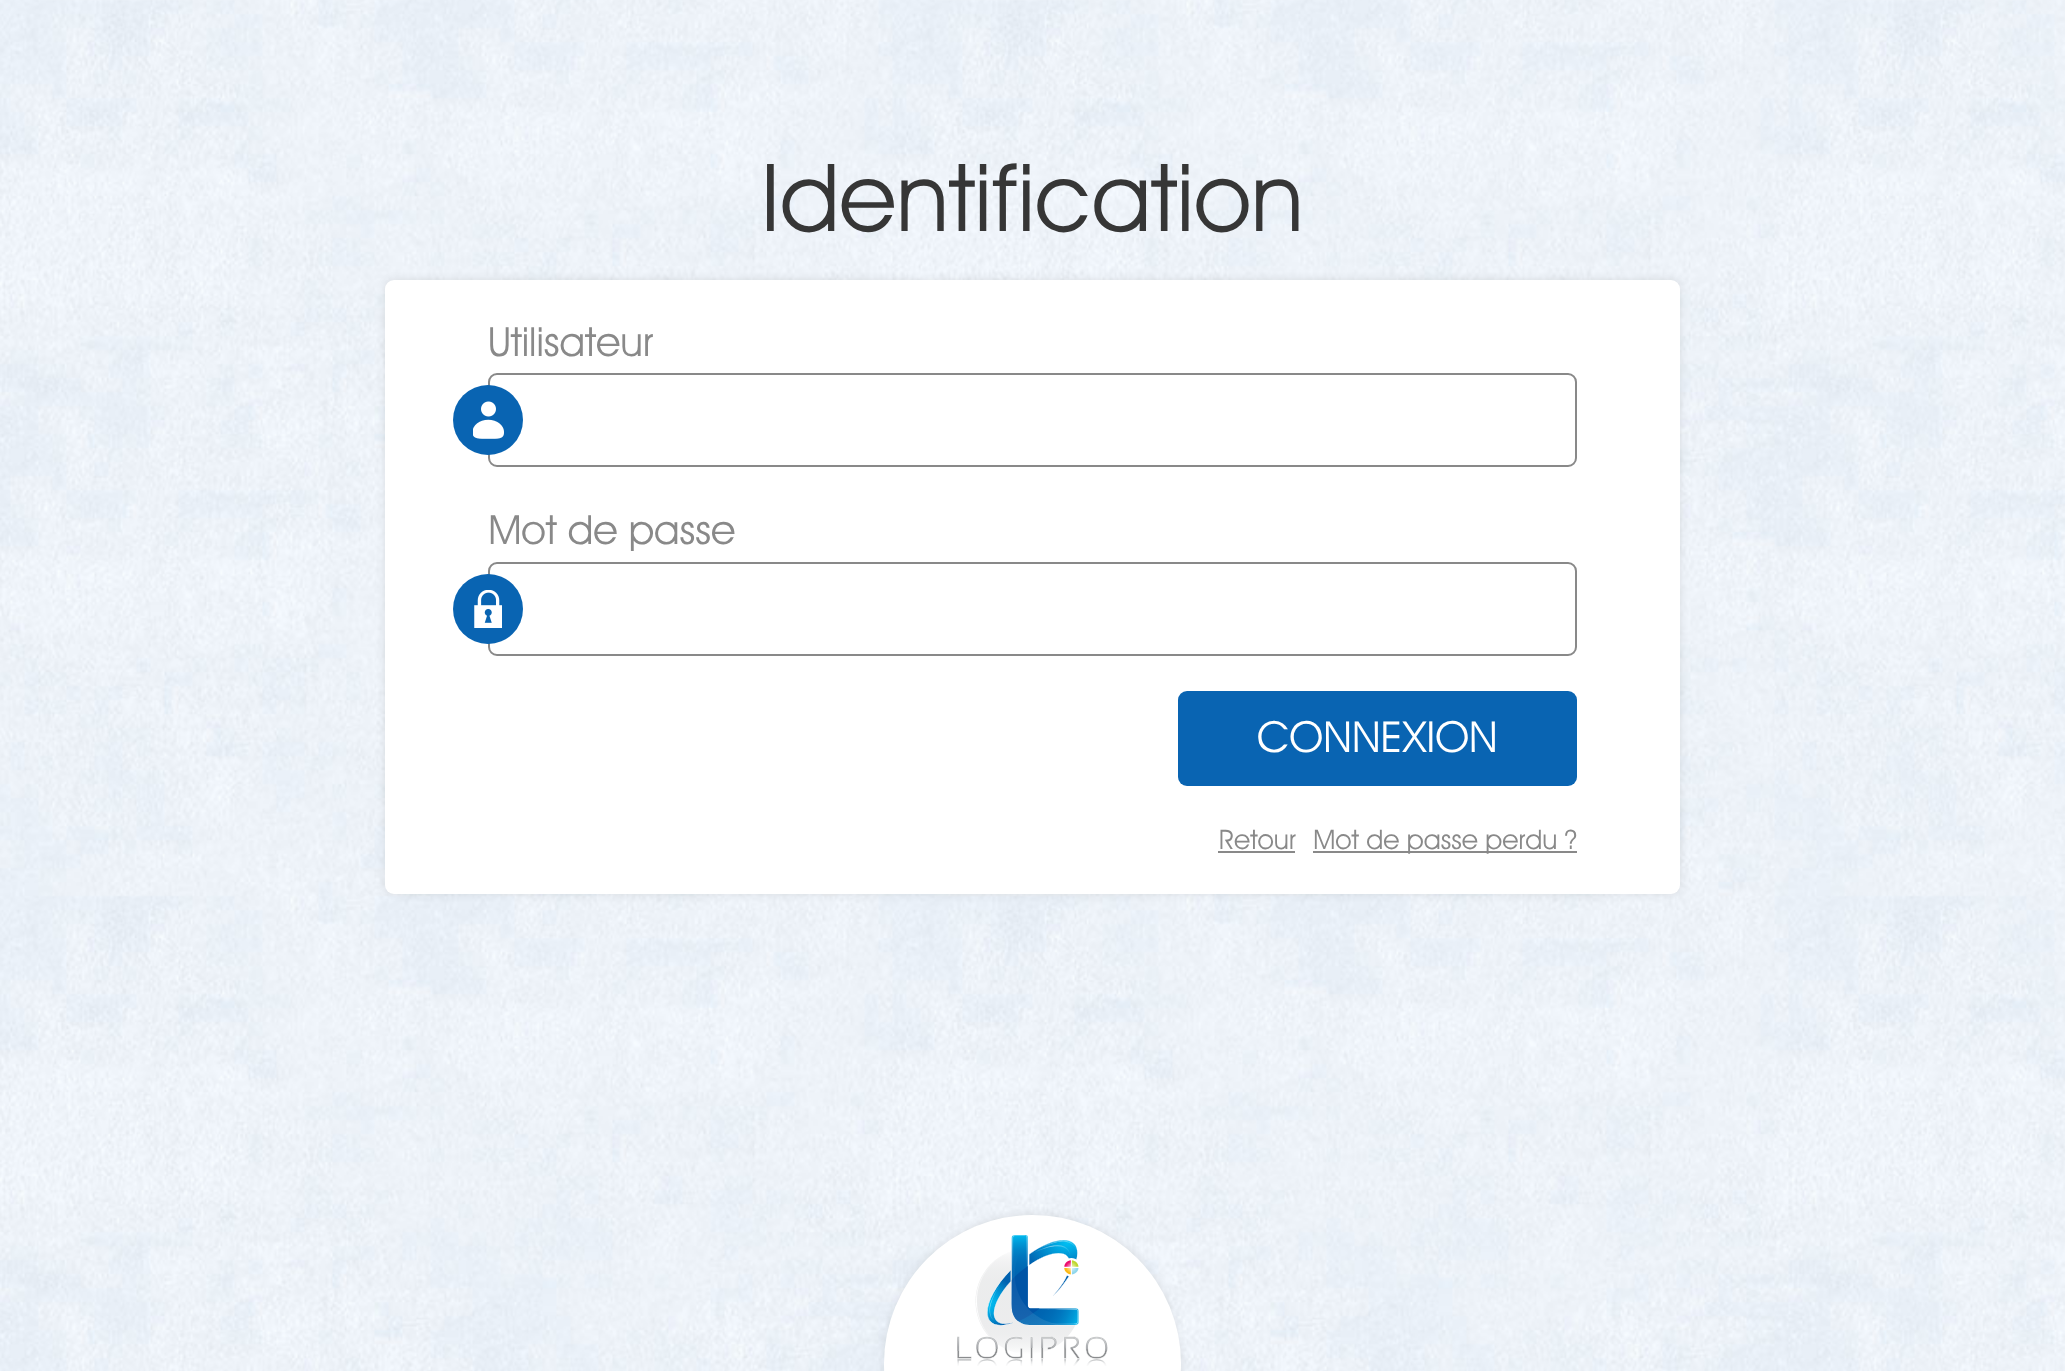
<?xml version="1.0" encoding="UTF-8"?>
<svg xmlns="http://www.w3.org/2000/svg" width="2065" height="1371">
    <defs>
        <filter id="blur1" x="-50%" y="-200%" width="200%" height="500%"><feGaussianBlur stdDeviation="4.5"/></filter>
    </defs>
    <rect width="100%" height="100%" fill="#FFFFFF"/>
    <image x="0" y="0" width="2065" height="1371" href="img_01.png"/>
    <text x="761" y="231" font-family="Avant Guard" font-size="98" fill="#363636">Identification</text>
    <rect x="385" y="280" width="1295" height="614" rx="9" fill="#000000" fill-opacity="0.1" filter="url(#blur1)"/>
    <rect x="385" y="280" width="1295" height="614" rx="9" fill="#FFFFFF"/>
    <text x="488" y="356" font-family="Avant Guard" font-size="42" fill="#898989">Utilisateur</text>
    <rect x="489" y="374" width="1087" height="92" rx="8" fill="none" stroke="#898989" stroke-width="2"/>
    <circle cx="488" cy="420" r="35" fill="#0964B2"/>
    <image x="473" y="401" width="31" height="38" href="img_02.png"/>
    <text x="488" y="544" font-family="Avant Guard" font-size="42" fill="#898989">Mot de passe</text>
    <rect x="489" y="563" width="1087" height="92" rx="8" fill="none" stroke="#898989" stroke-width="2"/>
    <circle cx="488" cy="609" r="35" fill="#0964B2"/>
    <image x="474" y="590" width="28" height="38" href="img_03.png"/>
    <rect x="1178" y="691" width="399" height="95" rx="9" fill="#0964B2"/>
    <text x="1257" y="752" font-family="Avant Guard" font-size="44.75" fill="#FFFFFF">CONNEXION</text>
    <text x="1219" y="849" font-family="Avant Guard" font-size="28" fill="#898989">Retour</text>
    <rect x="1218" y="851" width="77" height="2" fill="#898989"/>
    <rect x="1313" y="851" width="264" height="2" fill="#898989"/>
    <text x="1313" y="849" font-family="Avant Guard" font-size="28" fill="#898989">Mot de passe perdu ?</text>
    <rect x="884" y="1215" width="297" height="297" rx="148.5" fill="#000000" fill-opacity="0.1" filter="url(#blur1)"/>
    <circle cx="1032.5" cy="1363.5" r="148.5" fill="#FFFFFF"/>
    <image x="957" y="1235" width="151" height="131" href="img_04.png"/>
</svg>
